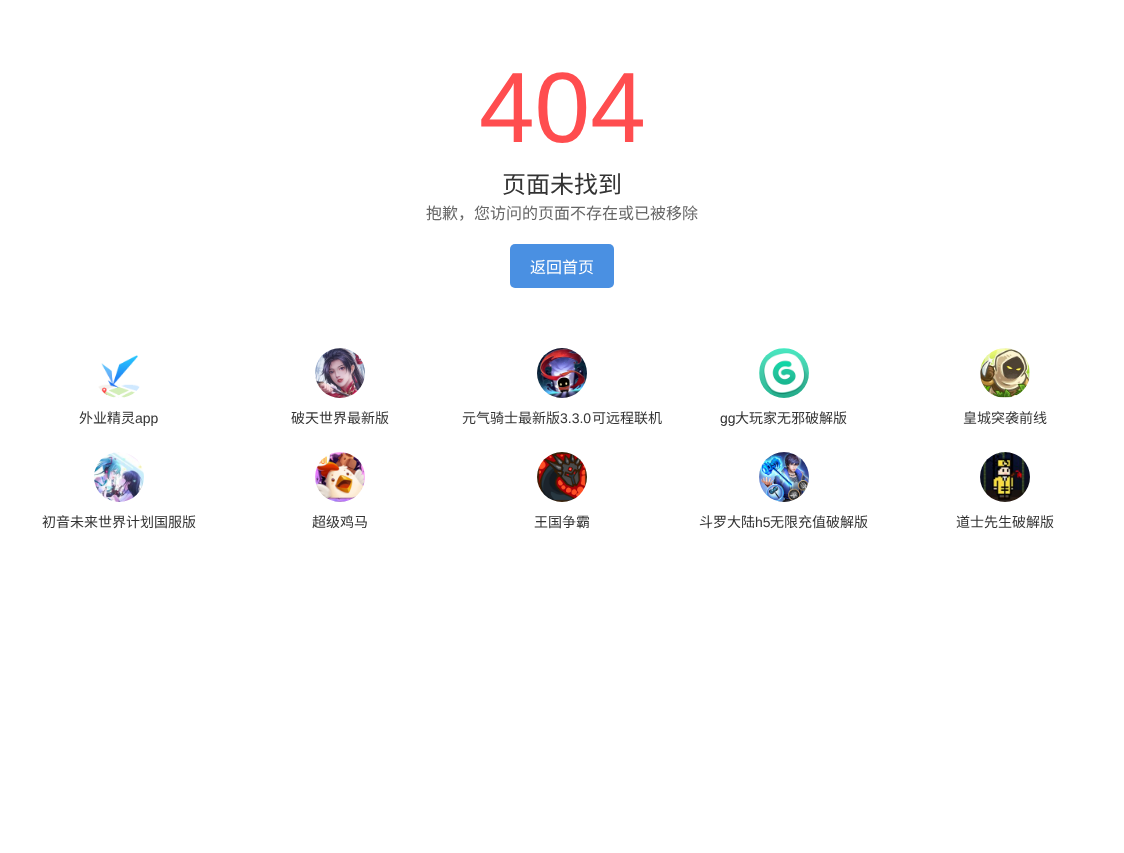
<?xml version="1.0" encoding="UTF-8"?>
<svg xmlns="http://www.w3.org/2000/svg" width="1124" height="853">
    <rect width="100%" height="100%" fill="#FFFFFF"/>
    <text x="479" y="142" font-family="Liberation Sans" font-size="100" fill="#FF4D4F">404</text>
    <text x="502" y="193" font-family="Noto Sans CJK SC" font-size="24" fill="#333333">页面未找到</text>
    <text x="426" y="219" font-family="Noto Sans CJK SC" font-size="16" fill="#666666">抱歉，您访问的页面不存在或已被移除</text>
    <rect x="510" y="244" width="104" height="44" rx="5" fill="#4A90E2"/>
    <text x="530" y="273" font-family="Noto Sans CJK SC" font-size="16" fill="#FFFFFF">返回首页</text>
    <image x="98" y="355" width="42" height="43" href="img_01.png"/>
    <text x="79" y="423" font-family="Noto Sans CJK SC" font-size="14" fill="#333333">外业精灵</text>
    <text x="135" y="423" font-family="Liberation Sans" font-size="14" fill="#333333">app</text>
    <image x="315" y="348" width="50" height="50" href="img_02.png"/>
    <text x="291" y="423" font-family="Noto Sans CJK SC" font-size="14" fill="#333333">破天世界最新版</text>
    <image x="537" y="348" width="50" height="50" href="img_03.png"/>
    <text x="462" y="423" font-family="Noto Sans CJK SC" font-size="14" fill="#333333">元气骑士最新版</text>
    <text x="560" y="423" font-family="Liberation Sans" font-size="14" fill="#333333">3.3.0</text>
    <text x="592" y="423" font-family="Noto Sans CJK SC" font-size="14" fill="#333333">可远程联机</text>
    <image x="759" y="348" width="50" height="50" href="img_04.png"/>
    <text x="720" y="423" font-family="Liberation Sans" font-size="14" fill="#333333">gg</text>
    <text x="735" y="423" font-family="Noto Sans CJK SC" font-size="14" fill="#333333">大玩家无邪破解版</text>
    <image x="980" y="348" width="50" height="50" href="img_05.png"/>
    <text x="963" y="423" font-family="Noto Sans CJK SC" font-size="14" fill="#333333">皇城突袭前线</text>
    <image x="94" y="452" width="50" height="50" href="img_06.png"/>
    <text x="42" y="527" font-family="Noto Sans CJK SC" font-size="14" fill="#333333">初音未来世界计划国服版</text>
    <image x="315" y="452" width="50" height="50" href="img_07.png"/>
    <text x="312" y="527" font-family="Noto Sans CJK SC" font-size="14" fill="#333333">超级鸡马</text>
    <image x="537" y="452" width="50" height="50" href="img_08.png"/>
    <text x="534" y="527" font-family="Noto Sans CJK SC" font-size="14" fill="#333333">王国争霸</text>
    <image x="759" y="452" width="50" height="50" href="img_09.png"/>
    <text x="699" y="527" font-family="Noto Sans CJK SC" font-size="14" fill="#333333">斗罗大陆</text>
    <text x="755" y="527" font-family="Liberation Sans" font-size="14" fill="#333333">h5</text>
    <text x="770" y="527" font-family="Noto Sans CJK SC" font-size="14" fill="#333333">无限充值破解版</text>
    <image x="980" y="452" width="50" height="50" href="img_10.png"/>
    <text x="956" y="527" font-family="Noto Sans CJK SC" font-size="14" fill="#333333">道士先生破解版</text>
</svg>
